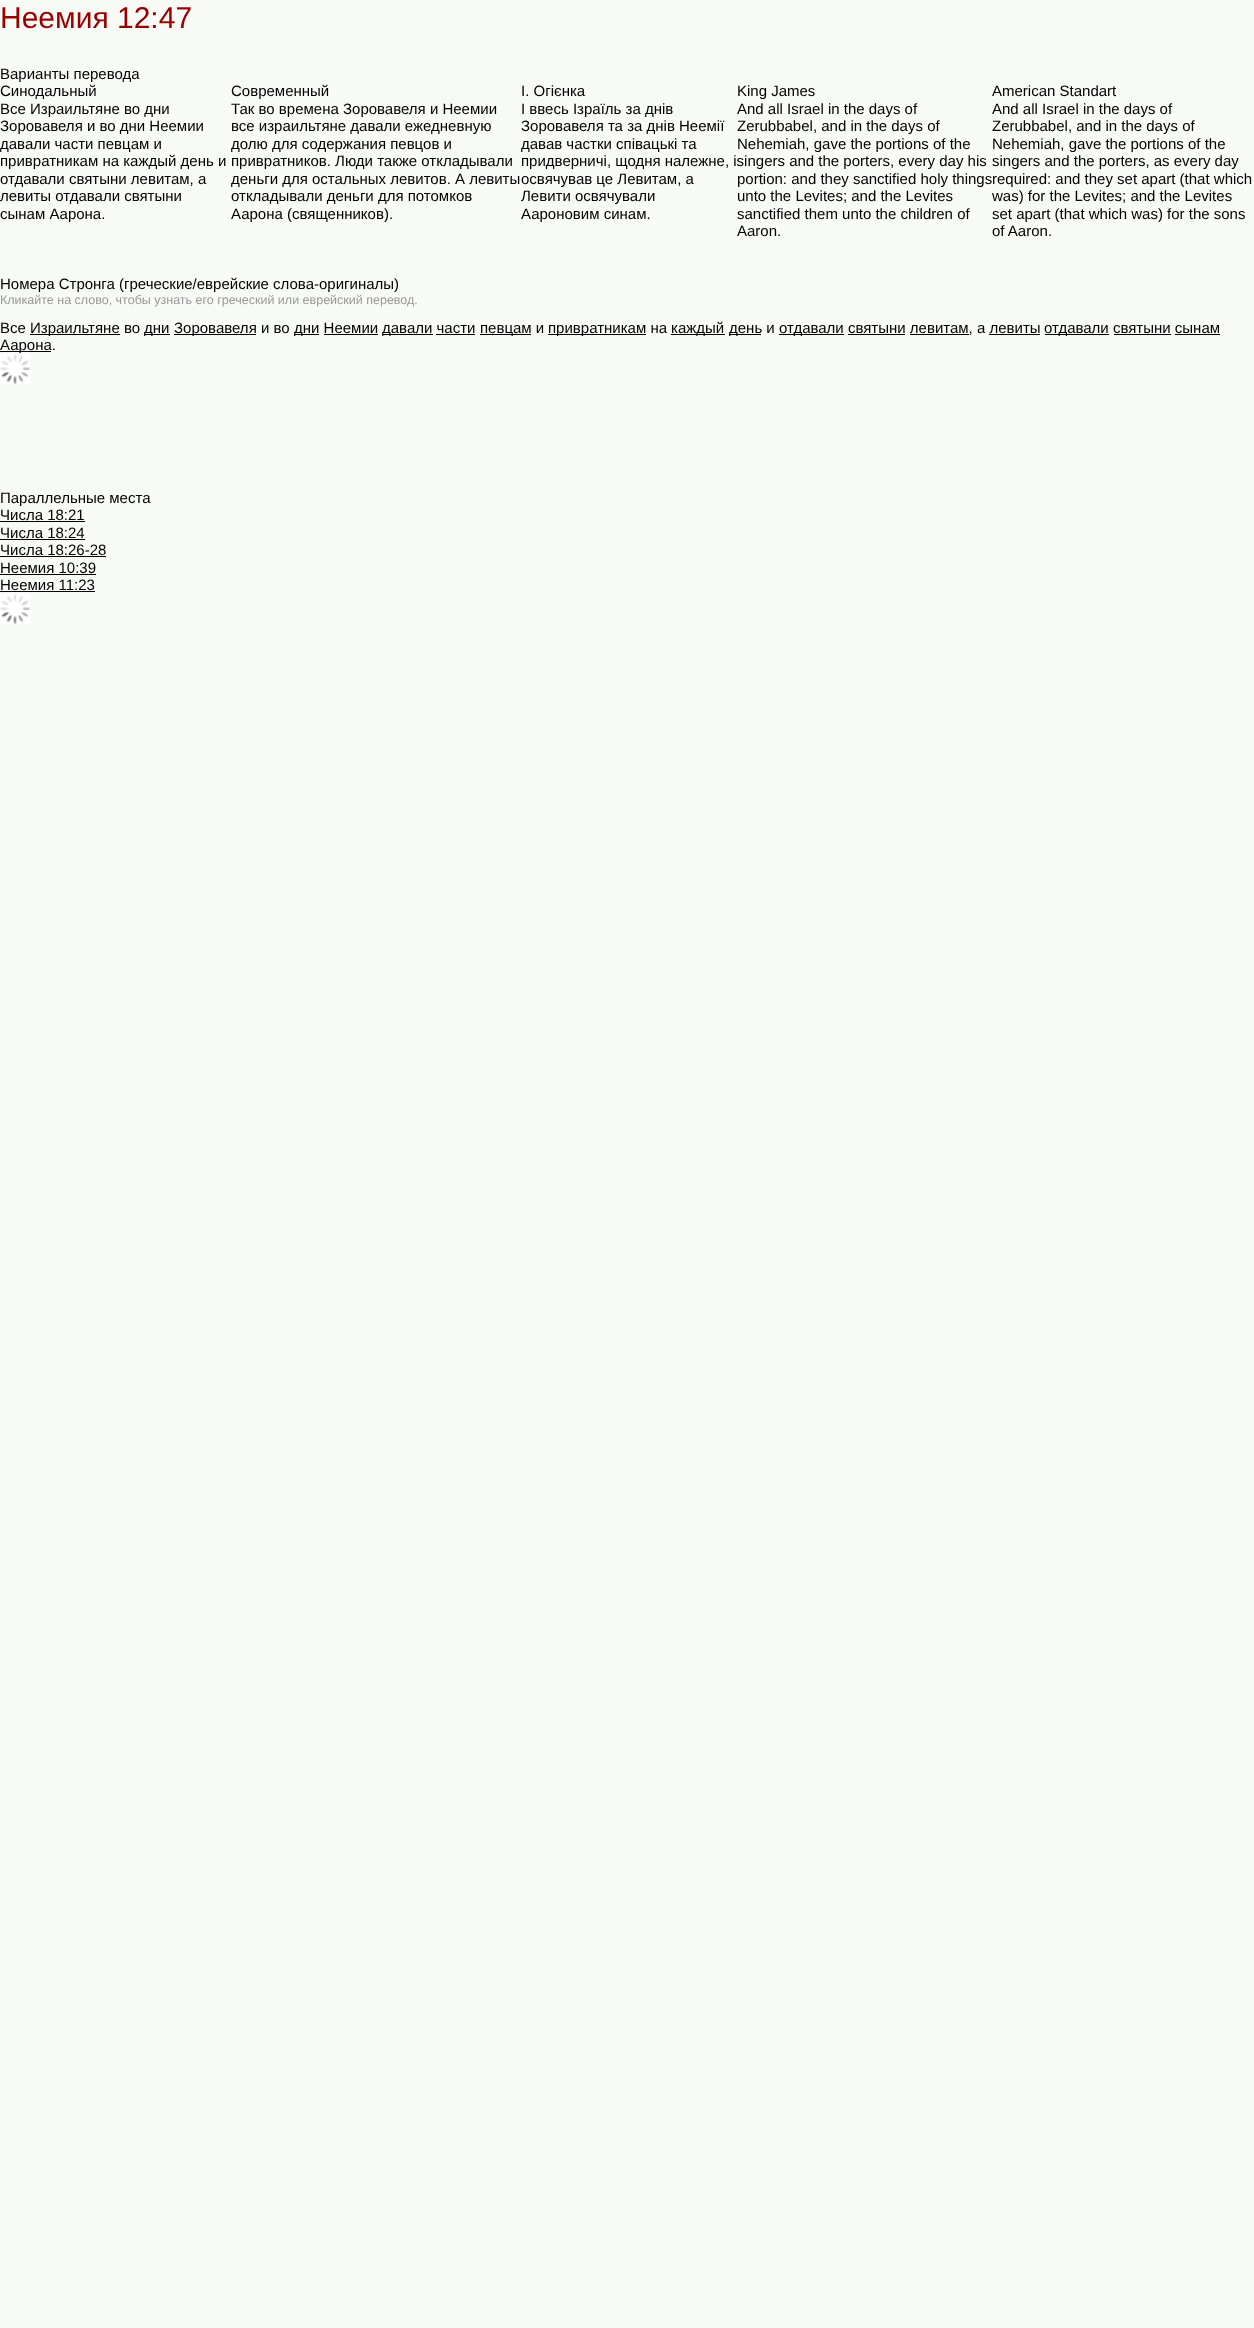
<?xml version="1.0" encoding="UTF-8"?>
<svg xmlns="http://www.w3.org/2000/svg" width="1254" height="2328">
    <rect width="100%" height="100%" fill="#F8FAF6"/>
    <text x="0" y="28" font-family="Liberation Sans" font-size="30" fill="#990000">Неемия 12:47</text>
    <text font-family="Liberation Sans" font-size="15" fill="#000000">
        <tspan x="0" y="79">Варианты перевода</tspan>
        <tspan x="0" y="96">Синодальный</tspan>
        <tspan x="0" y="114">Все Израильтяне во дни</tspan>
        <tspan x="0" y="131">Зоровавеля и во дни Неемии</tspan>
        <tspan x="0" y="149">давали части певцам и</tspan>
        <tspan x="0" y="166">привратникам на каждый день и</tspan>
        <tspan x="0" y="184">отдавали святыни левитам, а</tspan>
        <tspan x="0" y="201">левиты отдавали святыни</tspan>
        <tspan x="0" y="219">сынам Аарона.</tspan>
    </text>
    <text font-family="Liberation Sans" font-size="15" fill="#000000">
        <tspan x="231" y="96">Современный</tspan>
        <tspan x="231" y="114">Так во времена Зоровавеля и Неемии</tspan>
        <tspan x="231" y="131">все израильтяне давали ежедневную</tspan>
        <tspan x="231" y="149">долю для содержания певцов и</tspan>
        <tspan x="231" y="166">привратников. Люди также откладывали</tspan>
        <tspan x="231" y="184">деньги для остальных левитов. А левиты</tspan>
        <tspan x="231" y="201">откладывали деньги для потомков</tspan>
        <tspan x="231" y="219">Аарона (священников).</tspan>
    </text>
    <text font-family="Liberation Sans" font-size="15" fill="#000000">
        <tspan x="521" y="96">I. Oгієнка</tspan>
        <tspan x="521" y="114">І ввесь Ізраїль за днів</tspan>
        <tspan x="521" y="131">Зоровавеля та за днів Неемії</tspan>
        <tspan x="521" y="149">давав частки співацькі та</tspan>
        <tspan x="521" y="166">придверничі, щодня належне, іsingers and the porters, every day his</tspan>
        <tspan x="521" y="184">освячував це Левитам, а</tspan>
        <tspan x="521" y="201">Левити освячували</tspan>
        <tspan x="521" y="219">Аароновим синам.</tspan>
    </text>
    <text font-family="Liberation Sans" font-size="15" fill="#000000">
        <tspan x="737" y="96">King James</tspan>
        <tspan x="737" y="114">And all Israel in the days of</tspan>
        <tspan x="737" y="131">Zerubbabel, and in the days of</tspan>
        <tspan x="737" y="149">Nehemiah, gave the portions of the</tspan>
    </text>
    <text font-family="Liberation Sans" font-size="15" fill="#000000">
        <tspan x="737" y="184">portion: and they sanctified holy things</tspan>
        <tspan x="737" y="201">unto the Levites; and the Levites</tspan>
        <tspan x="737" y="219">sanctified them unto the children of</tspan>
        <tspan x="737" y="236">Aaron.</tspan>
    </text>
    <text font-family="Liberation Sans" font-size="15" fill="#000000">
        <tspan x="992" y="96">American Standart</tspan>
        <tspan x="992" y="114">And all Israel in the days of</tspan>
        <tspan x="992" y="131">Zerubbabel, and in the days of</tspan>
        <tspan x="992" y="149">Nehemiah, gave the portions of the</tspan>
        <tspan x="992" y="166">singers and the porters, as every day</tspan>
        <tspan x="992" y="184">required: and they set apart (that which</tspan>
        <tspan x="992" y="201">was) for the Levites; and the Levites</tspan>
        <tspan x="992" y="219">set apart (that which was) for the sons</tspan>
        <tspan x="992" y="236">of Aaron.</tspan>
    </text>
    <text x="0" y="289" font-family="Liberation Sans" font-size="15" fill="#000000">Номера Стронга (греческие/еврейские слова-оригиналы)</text>
    <text x="0" y="304" font-family="Liberation Sans" font-size="12.5" fill="#999999">Кликайте на слово, чтобы узнать его греческий или еврейский перевод.</text>
    <text x="0" y="333" font-family="Liberation Sans" font-size="15" fill="#000000">Все</text>
    <rect x="30" y="334" width="90" height="1" fill="#000000"/>
    <text x="30" y="333" font-family="Liberation Sans" font-size="15" fill="#000000">Израильтяне во</text>
    <rect x="144" y="334" width="26" height="1" fill="#000000"/>
    <text x="144" y="333" font-family="Liberation Sans" font-size="15" fill="#000000">дни</text>
    <rect x="174" y="334" width="82" height="1" fill="#000000"/>
    <text x="174" y="333" font-family="Liberation Sans" font-size="15" fill="#000000">Зоровавеля и во</text>
    <rect x="294" y="334" width="25" height="1" fill="#000000"/>
    <text x="294" y="333" font-family="Liberation Sans" font-size="15" fill="#000000">дни Неемии</text>
    <rect x="383" y="334" width="50" height="1" fill="#000000"/>
    <text x="382" y="333" font-family="Liberation Sans" font-size="15" fill="#000000">давали части</text>
    <rect x="480" y="334" width="51" height="1" fill="#000000"/>
    <text x="480" y="333" font-family="Liberation Sans" font-size="15" fill="#000000">певцам и</text>
    <rect x="548" y="334" width="98" height="1" fill="#000000"/>
    <text x="548" y="333" font-family="Liberation Sans" font-size="15" fill="#000000">привратникам на</text>
    <rect x="671" y="334" width="54" height="1" fill="#000000"/>
    <text x="671" y="333" font-family="Liberation Sans" font-size="15" fill="#000000">каждый</text>
    <rect x="729" y="334" width="32" height="1" fill="#000000"/>
    <text x="729" y="333" font-family="Liberation Sans" font-size="15" fill="#000000">день и</text>
    <rect x="779" y="334" width="65" height="1" fill="#000000"/>
    <text x="779" y="333" font-family="Liberation Sans" font-size="15" fill="#000000">отдавали святыни левитам, а левиты</text>
    <rect x="1045" y="334" width="64" height="1" fill="#000000"/>
    <text x="1044" y="333" font-family="Liberation Sans" font-size="15" fill="#000000">отдавали святыни сынам</text>
    <rect x="324" y="334" width="54" height="1" fill="#000000"/>
    <rect x="436" y="334" width="39" height="1" fill="#000000"/>
    <rect x="848" y="334" width="57" height="1" fill="#000000"/>
    <rect x="910" y="334" width="59" height="1" fill="#000000"/>
    <rect x="989" y="334" width="51" height="1" fill="#000000"/>
    <rect x="1114" y="334" width="57" height="1" fill="#000000"/>
    <rect x="1175" y="334" width="45" height="1" fill="#000000"/>
    <rect x="0" y="351" width="51" height="1" fill="#000000"/>
    <text x="0" y="350" font-family="Liberation Sans" font-size="15" fill="#000000">Аарона.</text>
    <image x="0" y="353" width="30" height="31" href="img_01.png"/>
    <text font-family="Liberation Sans" font-size="15" fill="#000000">
        <tspan x="0" y="503">Параллельные места</tspan>
        <tspan x="0" y="520">Числа 18:21</tspan>
    </text>
    <rect x="0" y="521" width="85" height="1" fill="#000000"/>
    <text x="0" y="538" font-family="Liberation Sans" font-size="15" fill="#000000">Числа 18:24</text>
    <rect x="0" y="539" width="85" height="1" fill="#000000"/>
    <text x="0" y="555" font-family="Liberation Sans" font-size="15" fill="#000000">Числа 18:26-28</text>
    <rect x="0" y="556" width="106" height="1" fill="#000000"/>
    <text x="0" y="573" font-family="Liberation Sans" font-size="15" fill="#000000">Неемия 10:39</text>
    <rect x="0" y="574" width="96" height="1" fill="#000000"/>
    <text x="0" y="590" font-family="Liberation Sans" font-size="15" fill="#000000">Неемия 11:23</text>
    <rect x="0" y="591" width="95" height="1" fill="#000000"/>
    <image x="0" y="594" width="30" height="30" href="img_02.png"/>
</svg>
